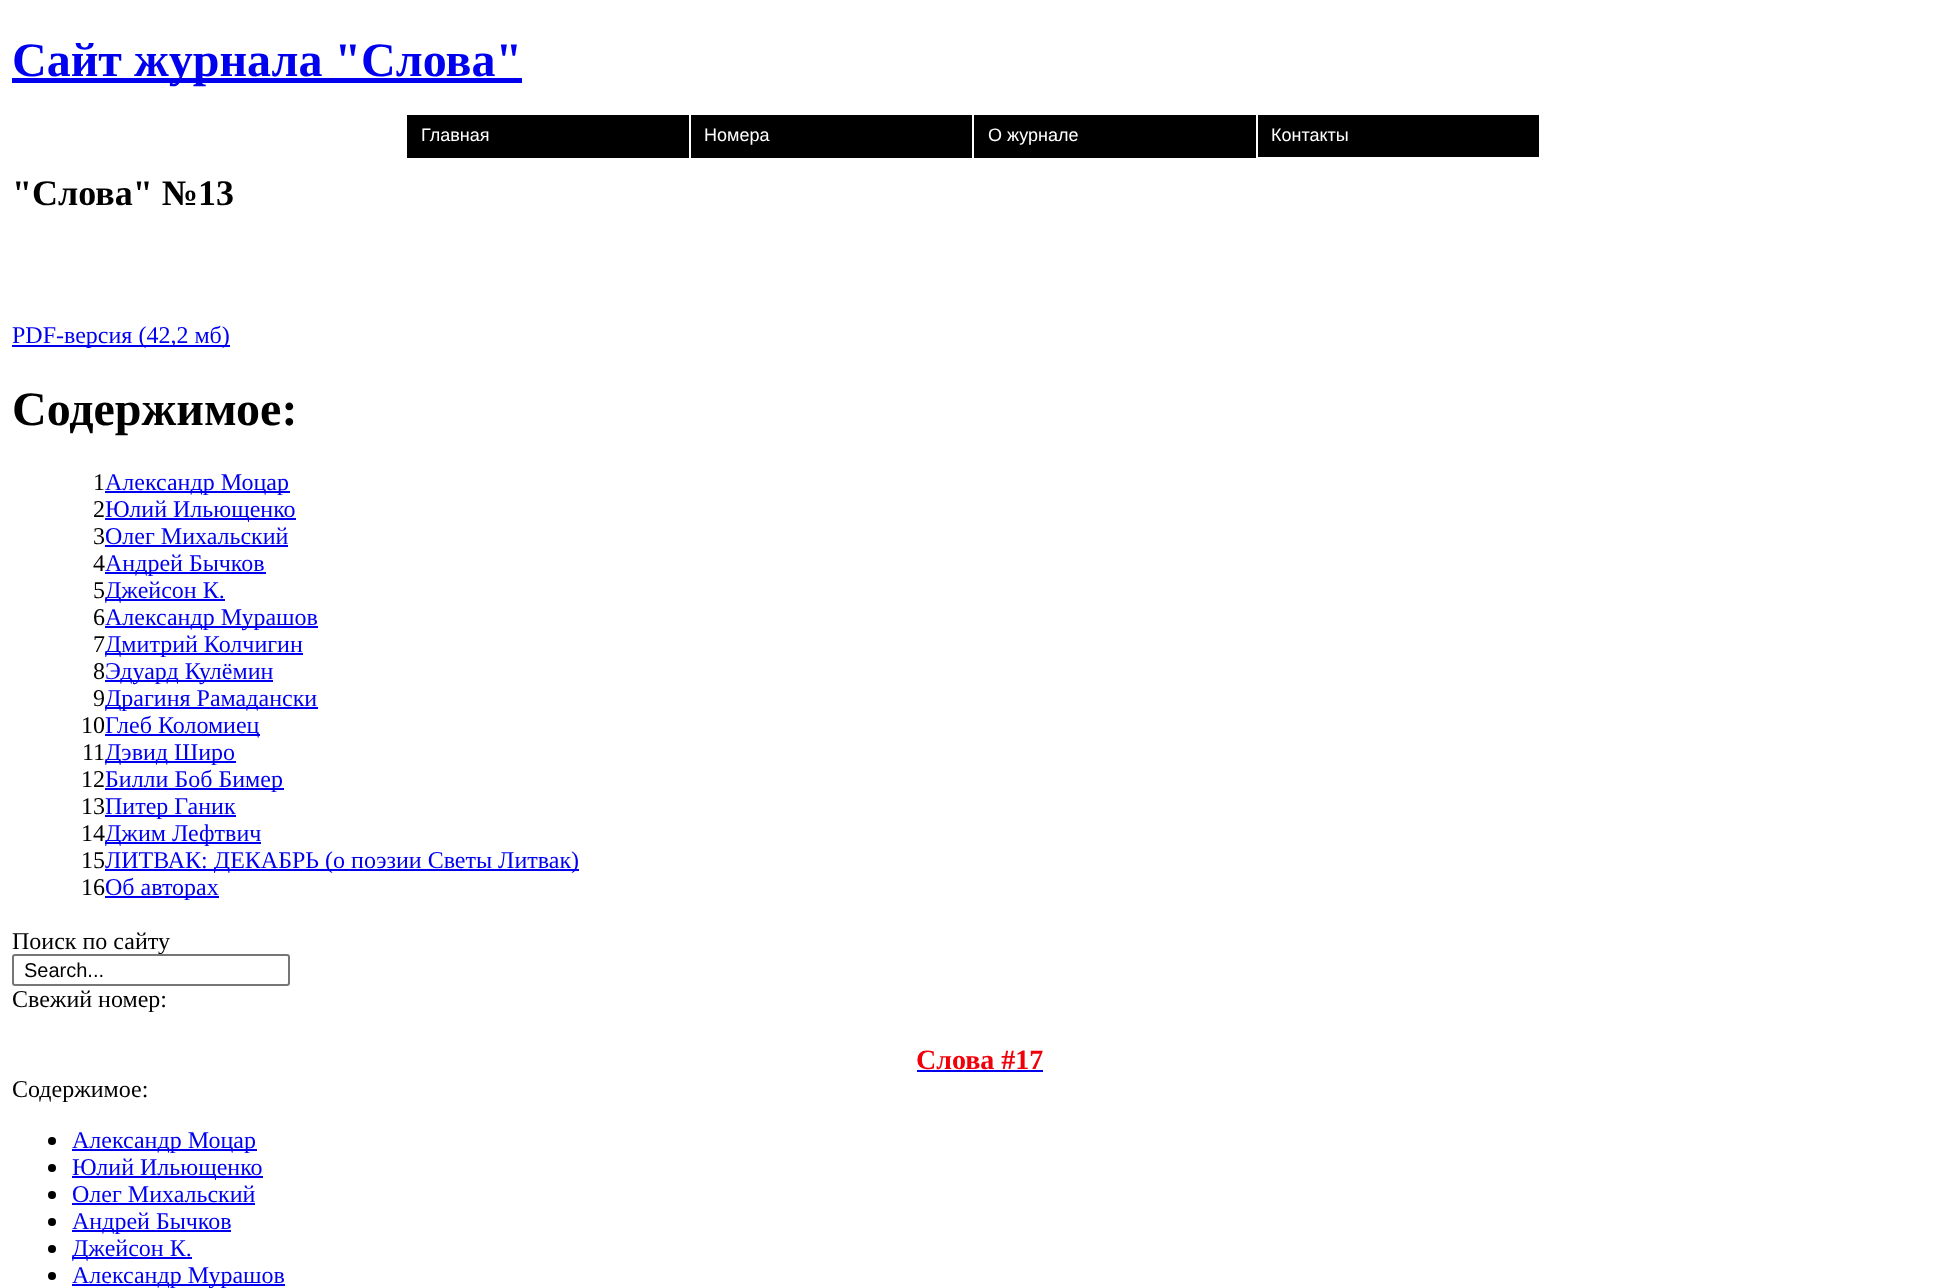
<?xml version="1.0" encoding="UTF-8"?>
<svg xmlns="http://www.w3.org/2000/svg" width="1958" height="1288">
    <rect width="100%" height="100%" fill="#FFFFFF"/>
    <rect x="12" y="78" width="510" height="5" fill="#0000EE"/>
    <text x="12" y="76" font-family="Liberation Serif" font-size="48" font-weight="700" fill="#0000EE">Сайт журнала "Слова"</text>
    <rect x="407" y="115" width="282" height="43" fill="#000000"/>
    <text x="421" y="141" font-family="Liberation Sans" font-size="18" fill="#FFFFFF">Главная</text>
    <rect x="691" y="115" width="281" height="43" fill="#000000"/>
    <text x="704" y="141" font-family="Liberation Sans" font-size="18" fill="#FFFFFF">Номера</text>
    <rect x="974" y="115" width="282" height="43" fill="#000000"/>
    <text x="988" y="141" font-family="Liberation Sans" font-size="18" fill="#FFFFFF">O журнале</text>
    <rect x="1258" y="115" width="281" height="42" fill="#000000"/>
    <text x="1271" y="141" font-family="Liberation Sans" font-size="18" fill="#FFFFFF">Контакты</text>
    <text x="12" y="205" font-family="Liberation Serif" font-size="36" font-weight="700" fill="#000000">"Слова" №13</text>
    <rect x="12" y="345" width="218" height="2" fill="#0000EE"/>
    <text x="12" y="343" font-family="Liberation Serif" font-size="24" fill="#0000EE">PDF-версия (42,2 мб)</text>
    <text x="12" y="425" font-family="Liberation Serif" font-size="48" font-weight="700" fill="#000000">Содержимое:</text>
    <text x="93" y="490" font-family="Liberation Serif" font-size="24" fill="#000000">1</text>
    <rect x="105" y="491" width="185" height="2" fill="#0000EE"/>
    <text x="105" y="490" font-family="Liberation Serif" font-size="24" fill="#0000EE">Александр Моцар</text>
    <text x="93" y="517" font-family="Liberation Serif" font-size="24" fill="#000000">2</text>
    <rect x="105" y="518" width="191" height="2" fill="#0000EE"/>
    <text x="105" y="517" font-family="Liberation Serif" font-size="24" fill="#0000EE">Юлий Ильющенко</text>
    <text x="93" y="544" font-family="Liberation Serif" font-size="24" fill="#000000">3</text>
    <text x="105" y="544" font-family="Liberation Serif" font-size="24" fill="#0000EE">Олег Михальский</text>
    <rect x="105" y="545" width="183" height="2" fill="#0000EE"/>
    <text x="93" y="571" font-family="Liberation Serif" font-size="24" fill="#000000">4</text>
    <rect x="105" y="572" width="161" height="2" fill="#0000EE"/>
    <text x="105" y="571" font-family="Liberation Serif" font-size="24" fill="#0000EE">Андрей Бычков</text>
    <text x="93" y="598" font-family="Liberation Serif" font-size="24" fill="#000000">5</text>
    <rect x="105" y="599" width="120" height="2" fill="#0000EE"/>
    <text x="105" y="598" font-family="Liberation Serif" font-size="24" fill="#0000EE">Джейсон К.</text>
    <text x="93" y="625" font-family="Liberation Serif" font-size="24" fill="#000000">6</text>
    <rect x="105" y="626" width="213" height="2" fill="#0000EE"/>
    <text x="105" y="625" font-family="Liberation Serif" font-size="24" fill="#0000EE">Александр Мурашов</text>
    <text x="93" y="652" font-family="Liberation Serif" font-size="24" fill="#000000">7</text>
    <rect x="105" y="653" width="198" height="2" fill="#0000EE"/>
    <text x="105" y="652" font-family="Liberation Serif" font-size="24" fill="#0000EE">Дмитрий Колчигин</text>
    <text x="93" y="679" font-family="Liberation Serif" font-size="24" fill="#000000">8</text>
    <rect x="105" y="680" width="168" height="2" fill="#0000EE"/>
    <text x="105" y="679" font-family="Liberation Serif" font-size="24" fill="#0000EE">Эдуард Кулёмин</text>
    <text x="93" y="706" font-family="Liberation Serif" font-size="24" fill="#000000">9</text>
    <rect x="105" y="707" width="213" height="2" fill="#0000EE"/>
    <text x="105" y="706" font-family="Liberation Serif" font-size="24" fill="#0000EE">Драгиня Рамадански</text>
    <text x="81" y="733" font-family="Liberation Serif" font-size="24" fill="#000000">10</text>
    <rect x="105" y="734" width="155" height="2" fill="#0000EE"/>
    <text x="105" y="733" font-family="Liberation Serif" font-size="24" fill="#0000EE">Глеб Коломиец</text>
    <text x="82" y="760" font-family="Liberation Serif" font-size="24" fill="#000000">11</text>
    <rect x="105" y="761" width="131" height="2" fill="#0000EE"/>
    <text x="105" y="760" font-family="Liberation Serif" font-size="24" fill="#0000EE">Дэвид Широ</text>
    <text x="81" y="787" font-family="Liberation Serif" font-size="24" fill="#000000">12</text>
    <rect x="105" y="788" width="179" height="2" fill="#0000EE"/>
    <text x="105" y="787" font-family="Liberation Serif" font-size="24" fill="#0000EE">Билли Боб Бимер</text>
    <text x="81" y="814" font-family="Liberation Serif" font-size="24" fill="#000000">13</text>
    <rect x="105" y="815" width="131" height="2" fill="#0000EE"/>
    <text x="105" y="814" font-family="Liberation Serif" font-size="24" fill="#0000EE">Питер Ганик</text>
    <text x="81" y="841" font-family="Liberation Serif" font-size="24" fill="#000000">14</text>
    <rect x="105" y="842" width="156" height="2" fill="#0000EE"/>
    <text x="105" y="841" font-family="Liberation Serif" font-size="24" fill="#0000EE">Джим Лефтвич</text>
    <text x="81" y="868" font-family="Liberation Serif" font-size="24" fill="#000000">15</text>
    <rect x="105" y="869" width="474" height="2" fill="#0000EE"/>
    <text x="105" y="868" font-family="Liberation Serif" font-size="24" fill="#0000EE">ЛИТВАК: ДЕКАБРЬ (о поэзии Светы Литвак)</text>
    <text x="81" y="895" font-family="Liberation Serif" font-size="24" fill="#000000">16</text>
    <rect x="105" y="896" width="114" height="2" fill="#0000EE"/>
    <text x="105" y="895" font-family="Liberation Serif" font-size="24" fill="#0000EE">Об авторах</text>
    <text x="12" y="949" font-family="Liberation Serif" font-size="24" fill="#000000">Поиск по сайту</text>
    <rect x="13" y="955" width="276" height="30" rx="2" fill="#FFFFFF" stroke="#767676" stroke-width="2"/>
    <text x="24" y="977" font-family="Liberation Sans" font-size="20" fill="#000000">Search...</text>
    <text x="12" y="1007" font-family="Liberation Serif" font-size="24" fill="#000000">Свежий номер:</text>
    <text x="916" y="1069" font-family="Liberation Serif" font-size="28" font-weight="700" fill="#F0000A">Слова #17</text>
    <rect x="917" y="1070" width="126" height="2" fill="#0000EE"/>
    <text x="12" y="1097" font-family="Liberation Serif" font-size="24" fill="#000000">Содержимое:</text>
    <circle cx="52" cy="1141" r="4" fill="#000000"/>
    <rect x="72" y="1149" width="185" height="2" fill="#0000EE"/>
    <text x="72" y="1148" font-family="Liberation Serif" font-size="24" fill="#0000EE">Александр Моцар</text>
    <circle cx="52" cy="1168" r="4" fill="#000000"/>
    <rect x="72" y="1176" width="191" height="2" fill="#0000EE"/>
    <text x="72" y="1175" font-family="Liberation Serif" font-size="24" fill="#0000EE">Юлий Ильющенко</text>
    <circle cx="52" cy="1195" r="4" fill="#000000"/>
    <text x="72" y="1202" font-family="Liberation Serif" font-size="24" fill="#0000EE">Олег Михальский</text>
    <rect x="72" y="1203" width="183" height="2" fill="#0000EE"/>
    <circle cx="52" cy="1222" r="4" fill="#000000"/>
    <rect x="72" y="1230" width="159" height="2" fill="#0000EE"/>
    <text x="72" y="1229" font-family="Liberation Serif" font-size="24" fill="#0000EE">Андрей Бычков</text>
    <circle cx="52" cy="1249" r="4" fill="#000000"/>
    <rect x="72" y="1257" width="120" height="2" fill="#0000EE"/>
    <text x="72" y="1256" font-family="Liberation Serif" font-size="24" fill="#0000EE">Джейсон К.</text>
    <circle cx="52" cy="1276" r="4" fill="#000000"/>
    <rect x="72" y="1284" width="213" height="2" fill="#0000EE"/>
    <text x="72" y="1283" font-family="Liberation Serif" font-size="24" fill="#0000EE">Александр Мурашов</text>
</svg>
